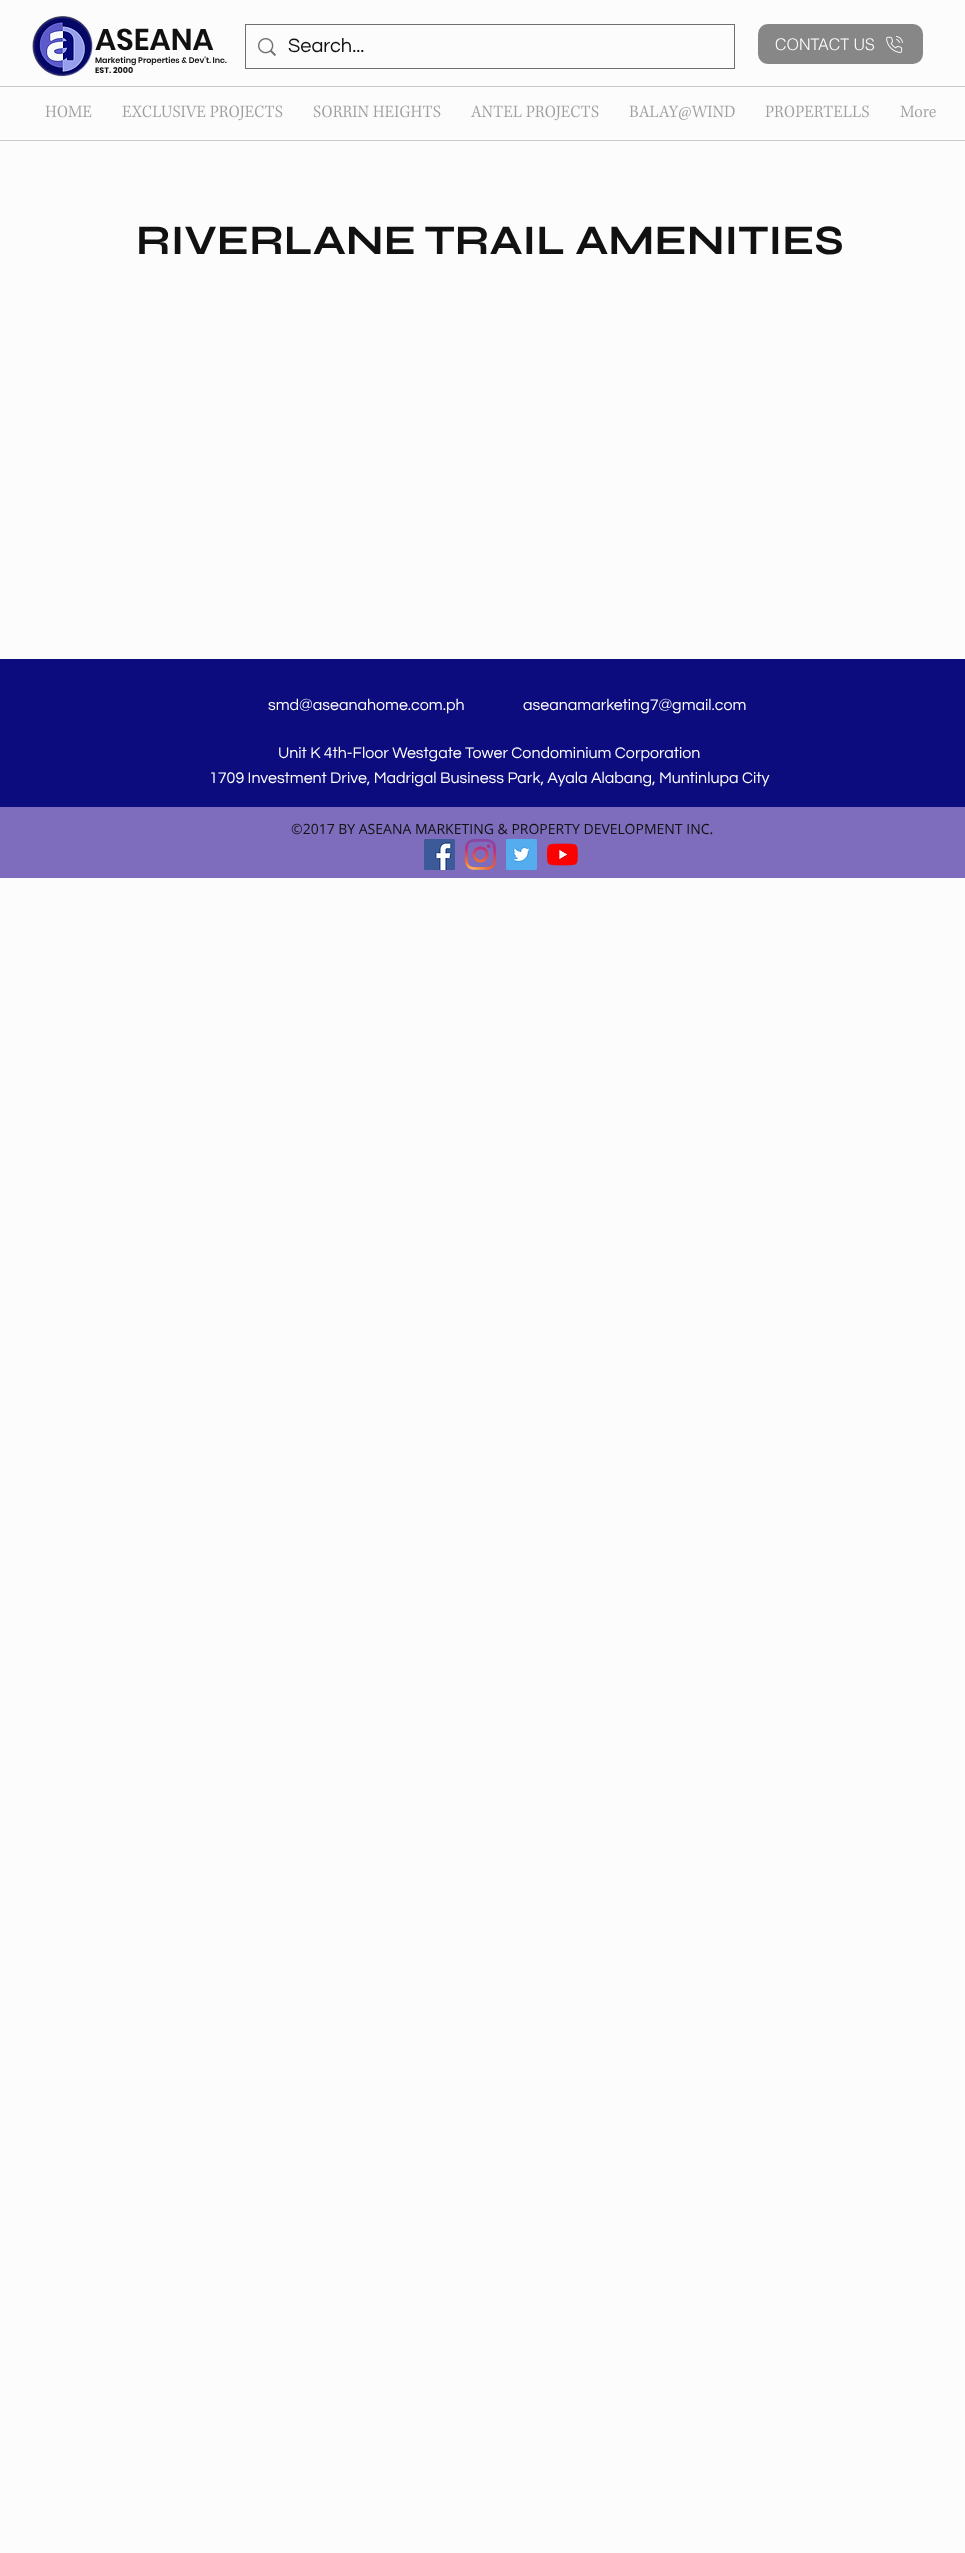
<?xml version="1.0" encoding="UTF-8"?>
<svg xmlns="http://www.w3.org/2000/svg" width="965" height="2553">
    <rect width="100%" height="100%" fill="#FCFCFC"/>
    <image x="32" y="15" width="61" height="62" href="img_01.png"/>
    <text x="95" y="50" font-family="Poppins" font-size="30" font-weight="600" fill="#111111">ASEANA</text>
    <rect x="245.5" y="24.5" width="489" height="44" fill="none" stroke="#6F6F6F"/>
    <image x="258" y="38" width="18" height="18" href="img_02.png"/>
    <text x="288" y="52" font-family="Questrial" font-size="20" fill="#111111">Search...</text>
    <rect x="758" y="24" width="165" height="40" rx="10" fill="#878787"/>
    <text x="775" y="50" font-family="helvetica" font-size="16" font-weight="300" fill="#FFFFFF">CONTACT US</text>
    <image x="886" y="36" width="17" height="17" href="img_03.png"/>
    <text x="95" y="63" font-family="Poppins" font-size="8" font-weight="600" fill="#111111">Marketing Properties &amp; Dev't. Inc.</text>
    <text x="95" y="73" font-family="Poppins" font-size="8" font-weight="700" fill="#111111">EST. 2000</text>
    <rect x="0" y="86" width="965" height="1" fill="#CACACA"/>
    <rect x="0" y="140" width="965" height="1" fill="#CACACA"/>
    <image x="45" y="105" width="47" height="13" href="img_04.png"/>
    <image x="122" y="105" width="161" height="16" href="img_05.png"/>
    <image x="313" y="105" width="128" height="13" href="img_06.png"/>
    <image x="470" y="105" width="129" height="16" href="img_07.png"/>
    <image x="629" y="105" width="106" height="15" href="img_08.png"/>
    <image x="765" y="105" width="104" height="13" href="img_09.png"/>
    <image x="900" y="105" width="36" height="13" href="img_10.png"/>
    <text x="136" y="254" font-family="Syne" font-size="42" font-weight="700" fill="#111111">RIVERLANE TRAIL AMENITIES</text>
    <rect x="0" y="659" width="965" height="148" fill="#0D0C7E"/>
    <text x="268" y="710" font-family="Questrial" font-size="16" fill="#FFFFFF">smd@aseanahome.com.ph</text>
    <text x="523" y="710" font-family="Questrial" font-size="16" fill="#FFFFFF">aseanamarketing7@gmail.com</text>
    <text x="278" y="758" font-family="Questrial" font-size="16" fill="#FFFFFF">Unit K 4th-Floor Westgate Tower Condominium Corporation</text>
    <text x="209" y="783" font-family="Questrial" font-size="16" fill="#FFFFFF">1709 Investment Drive, Madrigal Business Park, Ayala Alabang, Muntinlupa City</text>
    <rect x="0" y="807" width="965" height="71" fill="#7D6DBC"/>
    <text x="291" y="834" font-family="Open Sans" font-size="14" fill="#111111">©2017 BY ASEANA MARKETING &amp; PROPERTY DEVELOPMENT INC.</text>
    <image x="424" y="839" width="31" height="31" href="img_11.png"/>
    <image x="465" y="839" width="31" height="31" href="img_12.png"/>
    <image x="506" y="839" width="31" height="31" href="img_13.png"/>
    <image x="547" y="843" width="31" height="23" href="img_14.png"/>
</svg>
